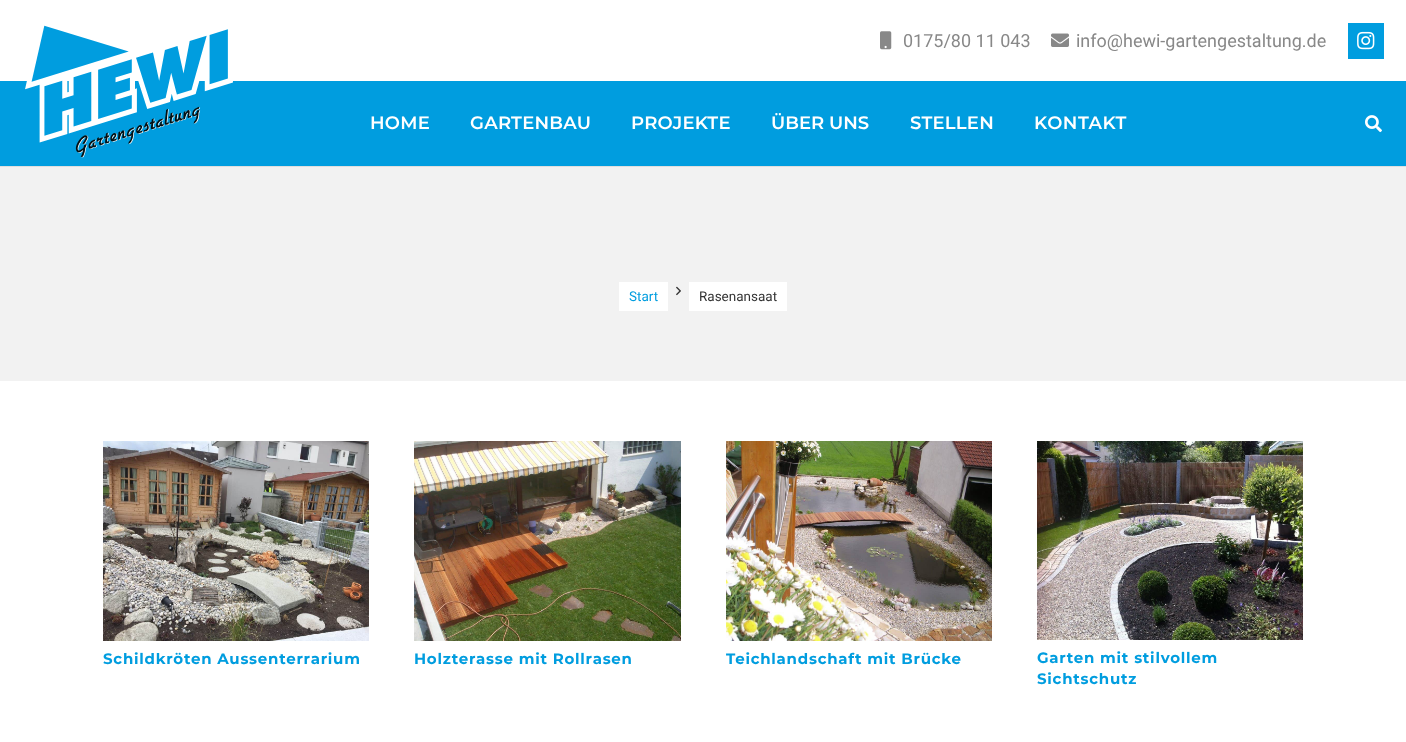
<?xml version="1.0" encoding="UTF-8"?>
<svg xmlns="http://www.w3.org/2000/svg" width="1406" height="742">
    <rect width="100%" height="100%" fill="#FFFFFF"/>
    <image x="880" y="31" width="12" height="19" href="img_01.png"/>
    <text x="903" y="47" font-family="Roboto" font-size="18" fill="#888888">0175/80 11 043</text>
    <image x="1051" y="33" width="18" height="14" href="img_02.png"/>
    <text x="1076" y="47" font-family="Roboto" font-size="18" fill="#888888">info@hewi-gartengestaltung.de</text>
    <rect x="1348" y="23" width="36" height="36" fill="#009DDF"/>
    <image x="1357" y="31" width="18" height="19" href="img_03.png"/>
    <rect x="0" y="166" width="1406" height="1" fill="#DFDFDF"/>
    <rect x="0" y="81" width="1406" height="85" fill="#009DDF"/>
    <image x="25" y="25" width="208" height="133" href="img_04.png"/>
    <text x="370" y="129" font-family="Montserrat" font-size="18" font-weight="600" letter-spacing="0.25" fill="#FFFFFF">HOME</text>
    <text x="470" y="129" font-family="Montserrat" font-size="18" font-weight="600" letter-spacing="0.25" fill="#FFFFFF">GARTENBAU</text>
    <text x="631" y="129" font-family="Montserrat" font-size="18" font-weight="600" letter-spacing="0.25" fill="#FFFFFF">PROJEKTE</text>
    <text x="771" y="129" font-family="Montserrat" font-size="18" font-weight="600" fill="#FFFFFF">ÜBER UNS</text>
    <text x="910" y="129" font-family="Montserrat" font-size="18" font-weight="600" letter-spacing="0.25" fill="#FFFFFF">STELLEN</text>
    <text x="1034" y="129" font-family="Montserrat" font-size="18" font-weight="600" letter-spacing="0.5" fill="#FFFFFF">KONTAKT</text>
    <image x="1365" y="115" width="17" height="18" href="img_05.png"/>
    <rect x="0" y="167" width="1406" height="214" fill="#F2F2F2"/>
    <rect x="619" y="282" width="49" height="29" fill="#FFFFFF"/>
    <text x="629" y="301" font-family="Roboto" font-size="13.5" fill="#009DDF">Start</text>
    <image x="676" y="286" width="5" height="10" href="img_06.png"/>
    <rect x="689" y="282" width="98" height="29" fill="#FFFFFF"/>
    <text x="699" y="301" font-family="Roboto" font-size="13.5" fill="#333333">Rasenansaat</text>
    <image x="103" y="441" width="266" height="200" href="img_07.png"/>
    <text x="103" y="664" font-family="Montserrat" font-size="15" font-weight="700" letter-spacing="0.75" fill="#009DDF">Schildkröten Aussenterrarium</text>
    <image x="414" y="441" width="267" height="200" href="img_08.png"/>
    <text x="414" y="664" font-family="Montserrat" font-size="15" font-weight="700" letter-spacing="0.75" fill="#009DDF">Holzterasse mit Rollrasen</text>
    <image x="726" y="441" width="266" height="200" href="img_09.png"/>
    <text x="726" y="664" font-family="Montserrat" font-size="15" font-weight="700" letter-spacing="0.75" fill="#009DDF">Teichlandschaft mit Brücke</text>
    <image x="1037" y="441" width="266" height="199" href="img_10.png"/>
    <text font-family="Montserrat" font-size="15" font-weight="700" letter-spacing="0.75" fill="#009DDF">
        <tspan x="1037" y="663">Garten mit stilvollem</tspan>
        <tspan x="1037" y="684">Sichtschutz</tspan>
    </text>
</svg>
